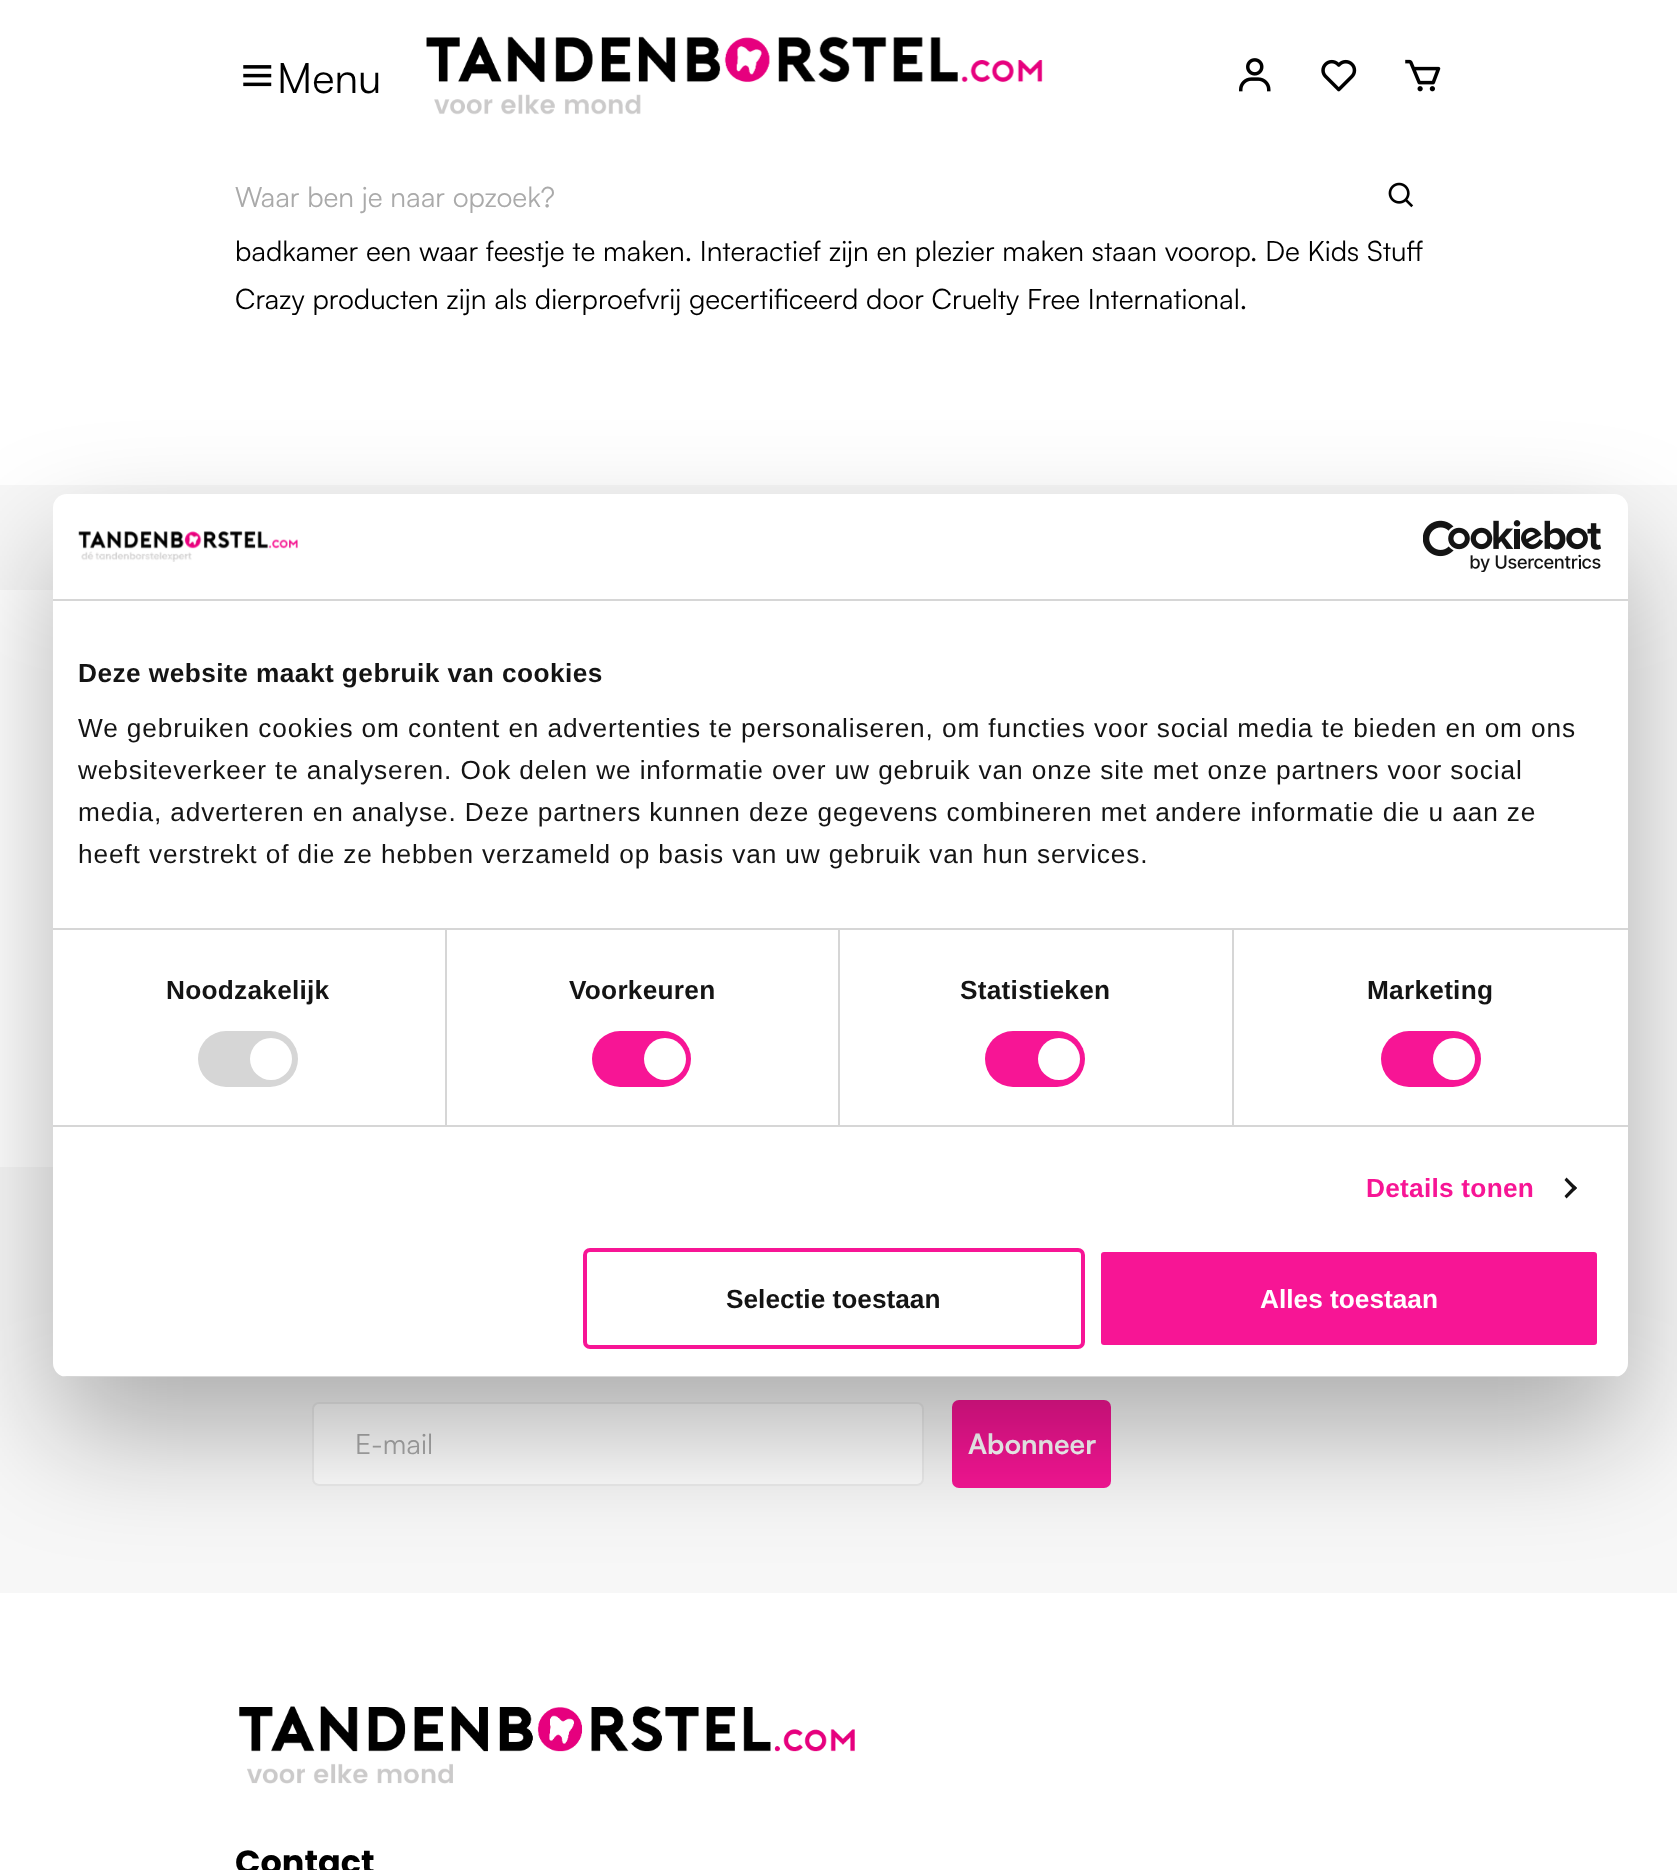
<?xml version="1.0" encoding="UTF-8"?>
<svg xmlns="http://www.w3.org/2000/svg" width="1677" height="1870">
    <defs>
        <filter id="blur1" x="-50%" y="-200%" width="200%" height="500%"><feGaussianBlur stdDeviation="59.5"/></filter>
        <clipPath id="clip1"><rect x="53" y="494" width="1575" height="883" rx="14"/></clipPath>
    </defs>
    <rect width="100%" height="100%" fill="#FFFFFF"/>
    <image x="243" y="65" width="29" height="22" href="img_01.png"/>
    <text x="277" y="93" font-family="Satoshi" font-size="42" fill="#000000">Menu</text>
    <image x="426" y="36" width="617" height="79" href="img_02.png"/>
    <image x="1239" y="58" width="32" height="34" href="img_03.png"/>
    <image x="1321" y="59" width="36" height="33" href="img_04.png"/>
    <image x="1405" y="59" width="36" height="33" href="img_05.png"/>
    <text x="235" y="207" font-family="Satoshi" font-size="28" fill="#AAAAAA">Waar ben je naar opzoek?</text>
    <image x="1388" y="182" width="26" height="26" href="img_06.png"/>
    <text font-family="Satoshi" font-size="28" fill="#000000">
        <tspan x="235" y="261">badkamer een waar feestje te maken. Interactief zijn en plezier maken staan voorop. De Kids Stuff</tspan>
        <tspan x="235" y="309">Crazy producten zijn als dierproefvrij gecertificeerd door Cruelty Free International.</tspan>
    </text>
    <rect x="0" y="485" width="1677" height="1108" fill="#F7F7F7"/>
    <rect x="0" y="590" width="53" height="577" fill="#FFFFFF"/>
    <rect x="313" y="1403" width="610" height="82" rx="6" fill="#FFFFFF" stroke="#EDEDED" stroke-width="2"/>
    <text x="355" y="1454" font-family="Satoshi" font-size="28" fill="#AAAAAA">E-mail</text>
    <rect x="952" y="1400" width="159" height="88" rx="7" fill="#F71595"/>
    <text x="968" y="1454" font-family="Satoshi" font-size="28" font-weight="700" fill="#FFFFFF">Abonneer</text>
    <image x="239" y="1706" width="616" height="78" href="img_07.png"/>
    <text x="235" y="1874" font-family="Poppins" font-size="33.5" font-weight="700" fill="#000000">Contact</text>
    <rect x="53" y="550" width="1575" height="883" rx="14" fill="#000000" fill-opacity="0.3" filter="url(#blur1)"/>
    <rect x="53" y="494" width="1575" height="883" rx="14" fill="#FFFFFF"/>
    <rect x="53" y="599" width="1575" height="2" fill="#D6D6D6"/>
    <image x="78" y="531" width="220" height="31" href="img_08.png"/>
    <image x="1423" y="520" width="178" height="52" href="img_09.png"/>
    <rect x="445" y="929" width="2" height="196" fill="#D6D6D6"/>
    <rect x="838" y="929" width="2" height="196" fill="#D6D6D6"/>
    <rect x="1232" y="929" width="2" height="196" fill="#D6D6D6"/>
    <rect x="53" y="928" width="1575" height="2" fill="#D6D6D6"/>
    <text x="78" y="682" font-family="Liberation Sans" font-size="26.25" font-weight="700" letter-spacing="0.45" fill="#141414">Deze website maakt gebruik van cookies</text>
    <text font-family="Liberation Sans" font-size="26.25" letter-spacing="0.88" fill="#141414">
        <tspan x="78" y="737">We gebruiken cookies om content en advertenties te personaliseren, om functies voor social media te bieden en om ons</tspan>
        <tspan x="78" y="779">websiteverkeer te analyseren. Ook delen we informatie over uw gebruik van onze site met onze partners voor social</tspan>
        <tspan x="78" y="821">media, adverteren en analyse. Deze partners kunnen deze gegevens combineren met andere informatie die u aan ze</tspan>
        <tspan x="78" y="863">heeft verstrekt of die ze hebben verzameld op basis van uw gebruik van hun services.</tspan>
    </text>
    <rect x="53" y="1125" width="1575" height="2" fill="#D6D6D6"/>
    <text x="166" y="999" font-family="Liberation Sans" font-size="26.25" font-weight="700" letter-spacing="0.25" fill="#141414">Noodzakelijk</text>
    <rect x="198" y="1031" width="100" height="56" rx="28" fill="#D6D6D6"/>
    <circle cx="271" cy="1059" r="21" fill="#FFFFFF"/>
    <text x="569" y="999" font-family="Liberation Sans" font-size="26.25" font-weight="700" letter-spacing="0.25" fill="#141414">Voorkeuren</text>
    <rect x="592" y="1031" width="99" height="56" rx="28" fill="#F71595"/>
    <circle cx="665" cy="1059" r="21" fill="#FFFFFF"/>
    <text x="960" y="999" font-family="Liberation Sans" font-size="26.25" font-weight="700" letter-spacing="0.25" fill="#141414">Statistieken</text>
    <rect x="985" y="1031" width="100" height="56" rx="28" fill="#F71595"/>
    <circle cx="1059" cy="1059" r="21" fill="#FFFFFF"/>
    <text x="1367" y="999" font-family="Liberation Sans" font-size="26.25" font-weight="700" letter-spacing="0.25" fill="#141414">Marketing</text>
    <rect x="1381" y="1031" width="100" height="56" rx="28" fill="#F71595"/>
    <circle cx="1454" cy="1059" r="21" fill="#FFFFFF"/>
    <text x="1366" y="1197" font-family="Liberation Sans" font-size="26.25" font-weight="700" letter-spacing="0.25" fill="#F71595">Details tonen</text>
    <path d="M 1566.5 1177.5 L 1577 1188 L 1574.5 1190.5 L 1564.5 1180 Z" fill="#141414"/>
    <path d="M 1574.5 1185.5 L 1577 1188 L 1566.5 1198.5 L 1564.5 1196 Z" fill="#141414"/>
    <g clip-path="url(#clip1)">
        <rect x="62" y="1376" width="1557" height="1" fill="#D6D6D6"/>
    </g>
    <rect x="585" y="1250" width="498" height="97" rx="5" fill="none" stroke="#F71595" stroke-width="4"/>
    <text x="726" y="1308" font-family="Liberation Sans" font-size="26.25" font-weight="700" fill="#141414">Selectie toestaan</text>
    <rect x="1099" y="1250" width="500" height="97" rx="5" fill="#F71595" stroke="#FFFFFF" stroke-width="4"/>
    <text x="1260" y="1308" font-family="Liberation Sans" font-size="26.25" font-weight="700" fill="#FFFFFF">Alles toestaan</text>
</svg>
